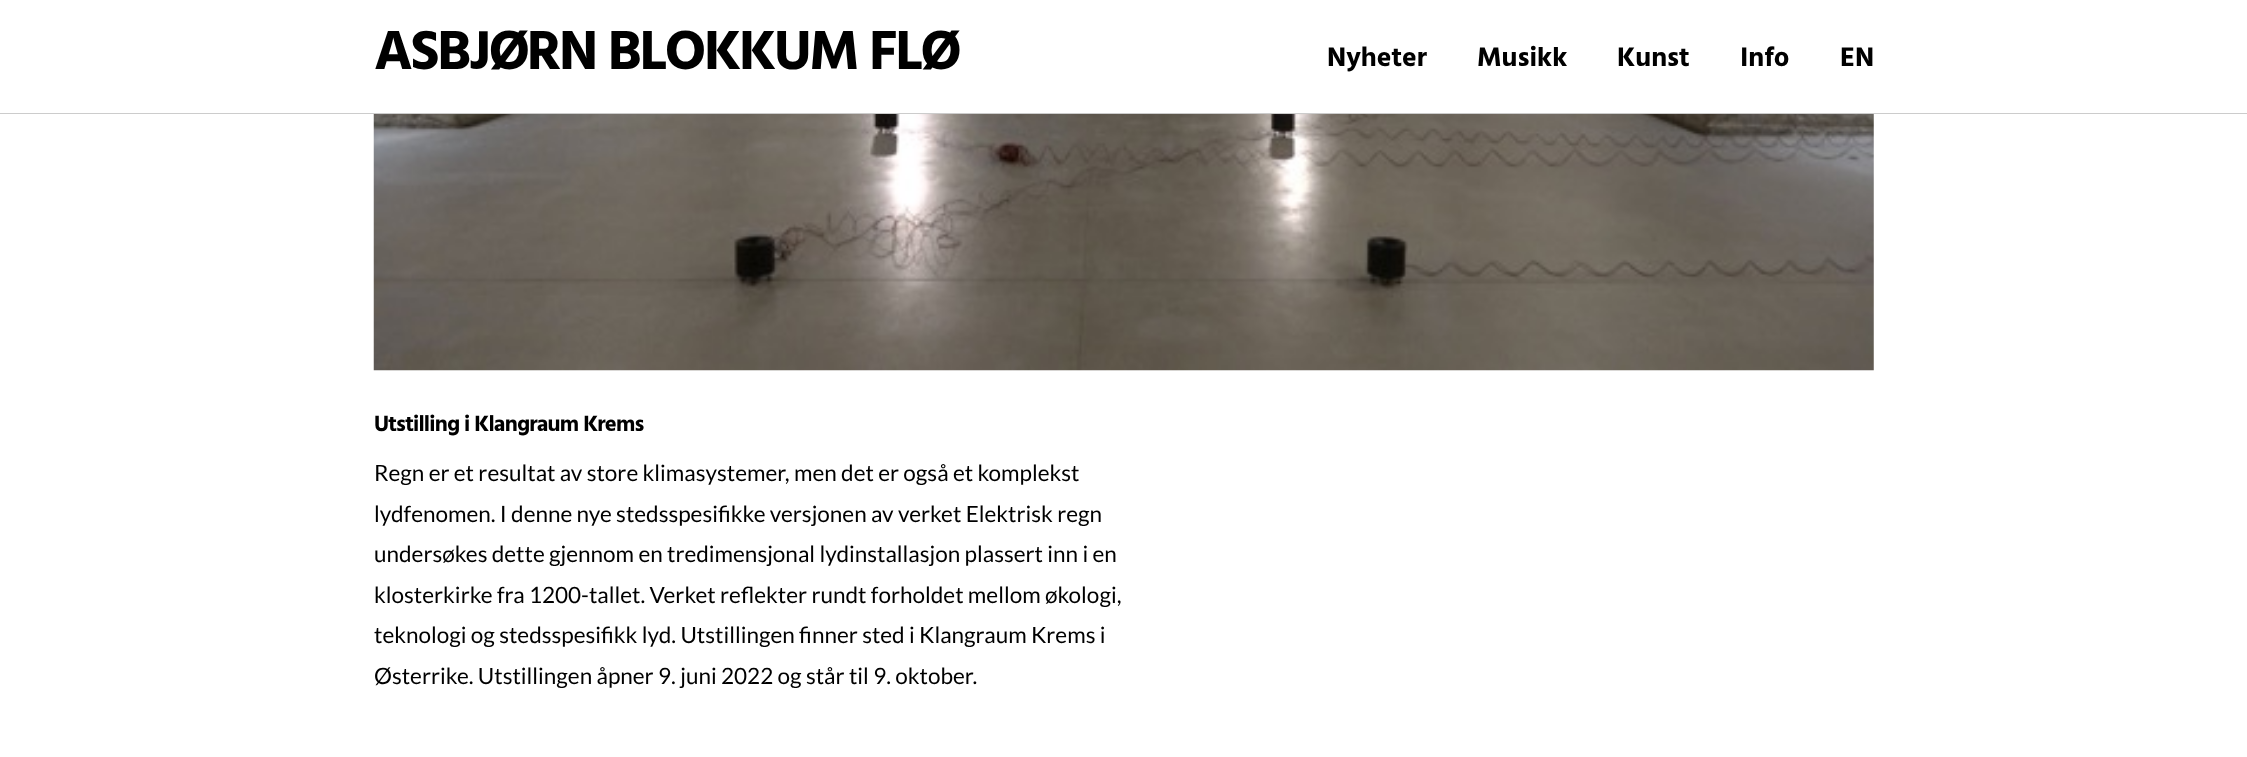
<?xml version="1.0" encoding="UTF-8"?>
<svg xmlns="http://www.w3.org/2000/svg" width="2247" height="757">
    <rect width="100%" height="100%" fill="#FFFFFF"/>
    <rect x="0" y="113" width="2247" height="1" fill="#CCCCCC"/>
    <text x="374" y="69" font-family="Hind" font-size="56.25" font-weight="700" letter-spacing="-2.25" fill="#000000">ASBJØRN BLOKKUM FLØ</text>
    <text x="1327" y="66" font-family="Hind" font-size="27.5" font-weight="700" fill="#000000">Nyheter</text>
    <text x="1477" y="66" font-family="Hind" font-size="27.5" font-weight="700" fill="#000000">Musikk</text>
    <text x="1617" y="66" font-family="Hind" font-size="27.5" font-weight="700" fill="#000000">Kunst</text>
    <text x="1740" y="66" font-family="Hind" font-size="27.5" font-weight="700" fill="#000000">Info</text>
    <text x="1840" y="66" font-family="Hind" font-size="27.5" font-weight="700" fill="#000000">EN</text>
    <image x="373" y="114" width="1501" height="257" href="img_01.png"/>
    <text x="374" y="431" font-family="Hind" font-size="22.5" font-weight="700" letter-spacing="-0.8" fill="#000000">Utstilling i Klangraum Krems</text>
    <text font-family="Lato" font-size="22.5" fill="#000000">
        <tspan x="374" y="481">Regn er et resultat av store klimasystemer, men det er også et komplekst</tspan>
        <tspan x="374" y="522">lydfenomen. I denne nye stedsspesifikke versjonen av verket Elektrisk regn</tspan>
        <tspan x="374" y="562">undersøkes dette gjennom en tredimensjonal lydinstallasjon plassert inn i en</tspan>
        <tspan x="374" y="603">klosterkirke fra 1200-tallet. Verket reflekter rundt forholdet mellom økologi,</tspan>
        <tspan x="374" y="643">teknologi og stedsspesifikk lyd. Utstillingen finner sted i Klangraum Krems i</tspan>
        <tspan x="374" y="684">Østerrike. Utstillingen åpner 9. juni 2022 og står til 9. oktober.</tspan>
    </text>
</svg>
